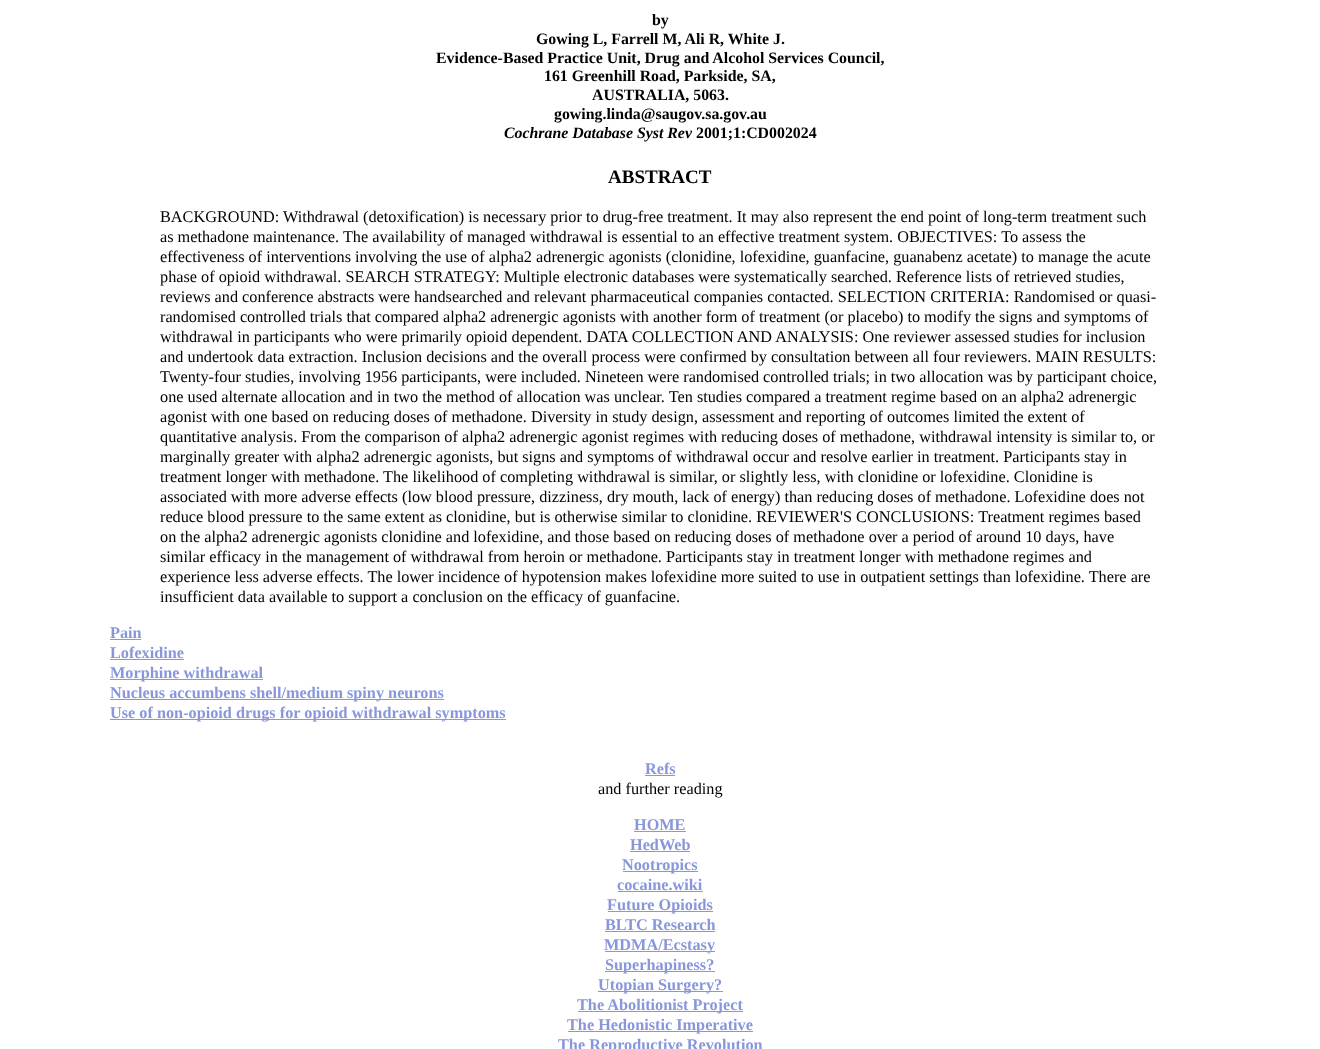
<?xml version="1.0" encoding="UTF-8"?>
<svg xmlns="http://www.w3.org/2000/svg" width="1320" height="1049">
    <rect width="100%" height="100%" fill="#FFFFFF"/>
    <text x="652" y="25" font-family="Liberation Serif" font-size="15.85" font-weight="700" fill="#000000">by</text>
    <text x="536" y="44" font-family="Liberation Serif" font-size="15.85" font-weight="700" fill="#000000">Gowing L, Farrell M, Ali R, White J.</text>
    <text x="436" y="63" font-family="Liberation Serif" font-size="15.85" font-weight="700" fill="#000000">Evidence-Based Practice Unit, Drug and Alcohol Services Council,</text>
    <text x="544" y="81" font-family="Liberation Serif" font-size="15.85" font-weight="700" fill="#000000">161 Greenhill Road, Parkside, SA,</text>
    <text x="592" y="100" font-family="Liberation Serif" font-size="15.85" font-weight="700" fill="#000000">AUSTRALIA, 5063.</text>
    <text x="554" y="119" font-family="Liberation Serif" font-size="15.85" font-weight="700" fill="#000000">gowing.linda@saugov.sa.gov.au</text>
    <text x="504" y="138" font-family="Liberation Serif" font-size="15.85" font-weight="700" font-style="italic" fill="#000000">Cochrane Database Syst Rev</text>
    <text x="696" y="138" font-family="Liberation Serif" font-size="15.85" font-weight="700" fill="#000000">2001;1:CD002024</text>
    <text x="608" y="183" font-family="Liberation Serif" font-size="19" font-weight="700" fill="#000000">ABSTRACT</text>
    <text font-family="Liberation Serif" font-size="16.25" fill="#000000">
        <tspan x="160" y="222">BACKGROUND: Withdrawal (detoxification) is necessary prior to drug-free treatment. It may also represent the end point of long-term treatment such</tspan>
        <tspan x="160" y="242">as methadone maintenance. The availability of managed withdrawal is essential to an effective treatment system. OBJECTIVES: To assess the</tspan>
        <tspan x="160" y="262">effectiveness of interventions involving the use of alpha2 adrenergic agonists (clonidine, lofexidine, guanfacine, guanabenz acetate) to manage the acute</tspan>
        <tspan x="160" y="282">phase of opioid withdrawal. SEARCH STRATEGY: Multiple electronic databases were systematically searched. Reference lists of retrieved studies,</tspan>
        <tspan x="160" y="302">reviews and conference abstracts were handsearched and relevant pharmaceutical companies contacted. SELECTION CRITERIA: Randomised or quasi-</tspan>
        <tspan x="160" y="322">randomised controlled trials that compared alpha2 adrenergic agonists with another form of treatment (or placebo) to modify the signs and symptoms of</tspan>
        <tspan x="160" y="342">withdrawal in participants who were primarily opioid dependent. DATA COLLECTION AND ANALYSIS: One reviewer assessed studies for inclusion</tspan>
        <tspan x="160" y="362">and undertook data extraction. Inclusion decisions and the overall process were confirmed by consultation between all four reviewers. MAIN RESULTS:</tspan>
        <tspan x="160" y="382">Twenty-four studies, involving 1956 participants, were included. Nineteen were randomised controlled trials; in two allocation was by participant choice,</tspan>
        <tspan x="160" y="402">one used alternate allocation and in two the method of allocation was unclear. Ten studies compared a treatment regime based on an alpha2 adrenergic</tspan>
        <tspan x="160" y="422">agonist with one based on reducing doses of methadone. Diversity in study design, assessment and reporting of outcomes limited the extent of</tspan>
        <tspan x="160" y="442">quantitative analysis. From the comparison of alpha2 adrenergic agonist regimes with reducing doses of methadone, withdrawal intensity is similar to, or</tspan>
        <tspan x="160" y="462">marginally greater with alpha2 adrenergic agonists, but signs and symptoms of withdrawal occur and resolve earlier in treatment. Participants stay in</tspan>
        <tspan x="160" y="482">treatment longer with methadone. The likelihood of completing withdrawal is similar, or slightly less, with clonidine or lofexidine. Clonidine is</tspan>
        <tspan x="160" y="502">associated with more adverse effects (low blood pressure, dizziness, dry mouth, lack of energy) than reducing doses of methadone. Lofexidine does not</tspan>
        <tspan x="160" y="522">reduce blood pressure to the same extent as clonidine, but is otherwise similar to clonidine. REVIEWER'S CONCLUSIONS: Treatment regimes based</tspan>
        <tspan x="160" y="542">on the alpha2 adrenergic agonists clonidine and lofexidine, and those based on reducing doses of methadone over a period of around 10 days, have</tspan>
        <tspan x="160" y="562">similar efficacy in the management of withdrawal from heroin or methadone. Participants stay in treatment longer with methadone regimes and</tspan>
        <tspan x="160" y="582">experience less adverse effects. The lower incidence of hypotension makes lofexidine more suited to use in outpatient settings than lofexidine. There are</tspan>
        <tspan x="160" y="602">insufficient data available to support a conclusion on the efficacy of guanfacine.</tspan>
    </text>
    <text x="110" y="638" font-family="Liberation Serif" font-size="16.25" font-weight="700" fill="#8897DB">Pain</text>
    <rect x="110" y="639" width="31" height="1" fill="#8897DB"/>
    <text x="110" y="658" font-family="Liberation Serif" font-size="16.25" font-weight="700" fill="#8897DB">Lofexidine</text>
    <rect x="110" y="659" width="74" height="1" fill="#8897DB"/>
    <rect x="110" y="679" width="153" height="1" fill="#8897DB"/>
    <text x="110" y="678" font-family="Liberation Serif" font-size="16.25" font-weight="700" fill="#8897DB">Morphine withdrawal</text>
    <rect x="110" y="699" width="334" height="1" fill="#8897DB"/>
    <text x="110" y="698" font-family="Liberation Serif" font-size="16.25" font-weight="700" fill="#8897DB">Nucleus accumbens shell/medium spiny neurons</text>
    <rect x="110" y="719" width="396" height="1" fill="#8897DB"/>
    <text x="110" y="718" font-family="Liberation Serif" font-size="16.25" font-weight="700" fill="#8897DB">Use of non-opioid drugs for opioid withdrawal symptoms</text>
    <text x="645" y="774" font-family="Liberation Serif" font-size="16.25" font-weight="700" fill="#8897DB">Refs</text>
    <rect x="645" y="775" width="30" height="1" fill="#8897DB"/>
    <text x="598" y="794" font-family="Liberation Serif" font-size="16.25" fill="#000000">and further reading</text>
    <text x="634" y="830" font-family="Liberation Serif" font-size="16.25" font-weight="700" fill="#8897DB">HOME</text>
    <rect x="634" y="831" width="52" height="1" fill="#8897DB"/>
    <text x="630" y="850" font-family="Liberation Serif" font-size="16.25" font-weight="700" fill="#8897DB">HedWeb</text>
    <rect x="630" y="851" width="60" height="1" fill="#8897DB"/>
    <rect x="623" y="871" width="75" height="1" fill="#8897DB"/>
    <text x="622" y="870" font-family="Liberation Serif" font-size="16.25" font-weight="700" fill="#8897DB">Nootropics</text>
    <text x="617" y="890" font-family="Liberation Serif" font-size="16.25" font-weight="700" fill="#8897DB">cocaine.wiki</text>
    <rect x="618" y="891" width="85" height="1" fill="#8897DB"/>
    <rect x="608" y="911" width="105" height="1" fill="#8897DB"/>
    <text x="607" y="910" font-family="Liberation Serif" font-size="16.25" font-weight="700" fill="#8897DB">Future Opioids</text>
    <text x="605" y="930" font-family="Liberation Serif" font-size="16.25" font-weight="700" fill="#8897DB">BLTC Research</text>
    <rect x="605" y="931" width="110" height="1" fill="#8897DB"/>
    <rect x="605" y="951" width="110" height="1" fill="#8897DB"/>
    <text x="604" y="950" font-family="Liberation Serif" font-size="16.25" font-weight="700" fill="#8897DB">MDMA/Ecstasy</text>
    <rect x="605" y="971" width="110" height="1" fill="#8897DB"/>
    <text x="605" y="970" font-family="Liberation Serif" font-size="16.25" font-weight="700" fill="#8897DB">Superhapiness?</text>
    <rect x="598" y="991" width="125" height="1" fill="#8897DB"/>
    <text x="598" y="990" font-family="Liberation Serif" font-size="16.25" font-weight="700" fill="#8897DB">Utopian Surgery?</text>
    <rect x="578" y="1011" width="165" height="1" fill="#8897DB"/>
    <text x="577" y="1010" font-family="Liberation Serif" font-size="16.25" font-weight="700" fill="#8897DB">The Abolitionist Project</text>
    <rect x="568" y="1031" width="185" height="1" fill="#8897DB"/>
    <text x="567" y="1030" font-family="Liberation Serif" font-size="16.25" font-weight="700" fill="#8897DB">The Hedonistic Imperative</text>
    <text x="558" y="1050" font-family="Liberation Serif" font-size="16.25" font-weight="700" fill="#8897DB">The Reproductive Revolution</text>
</svg>
